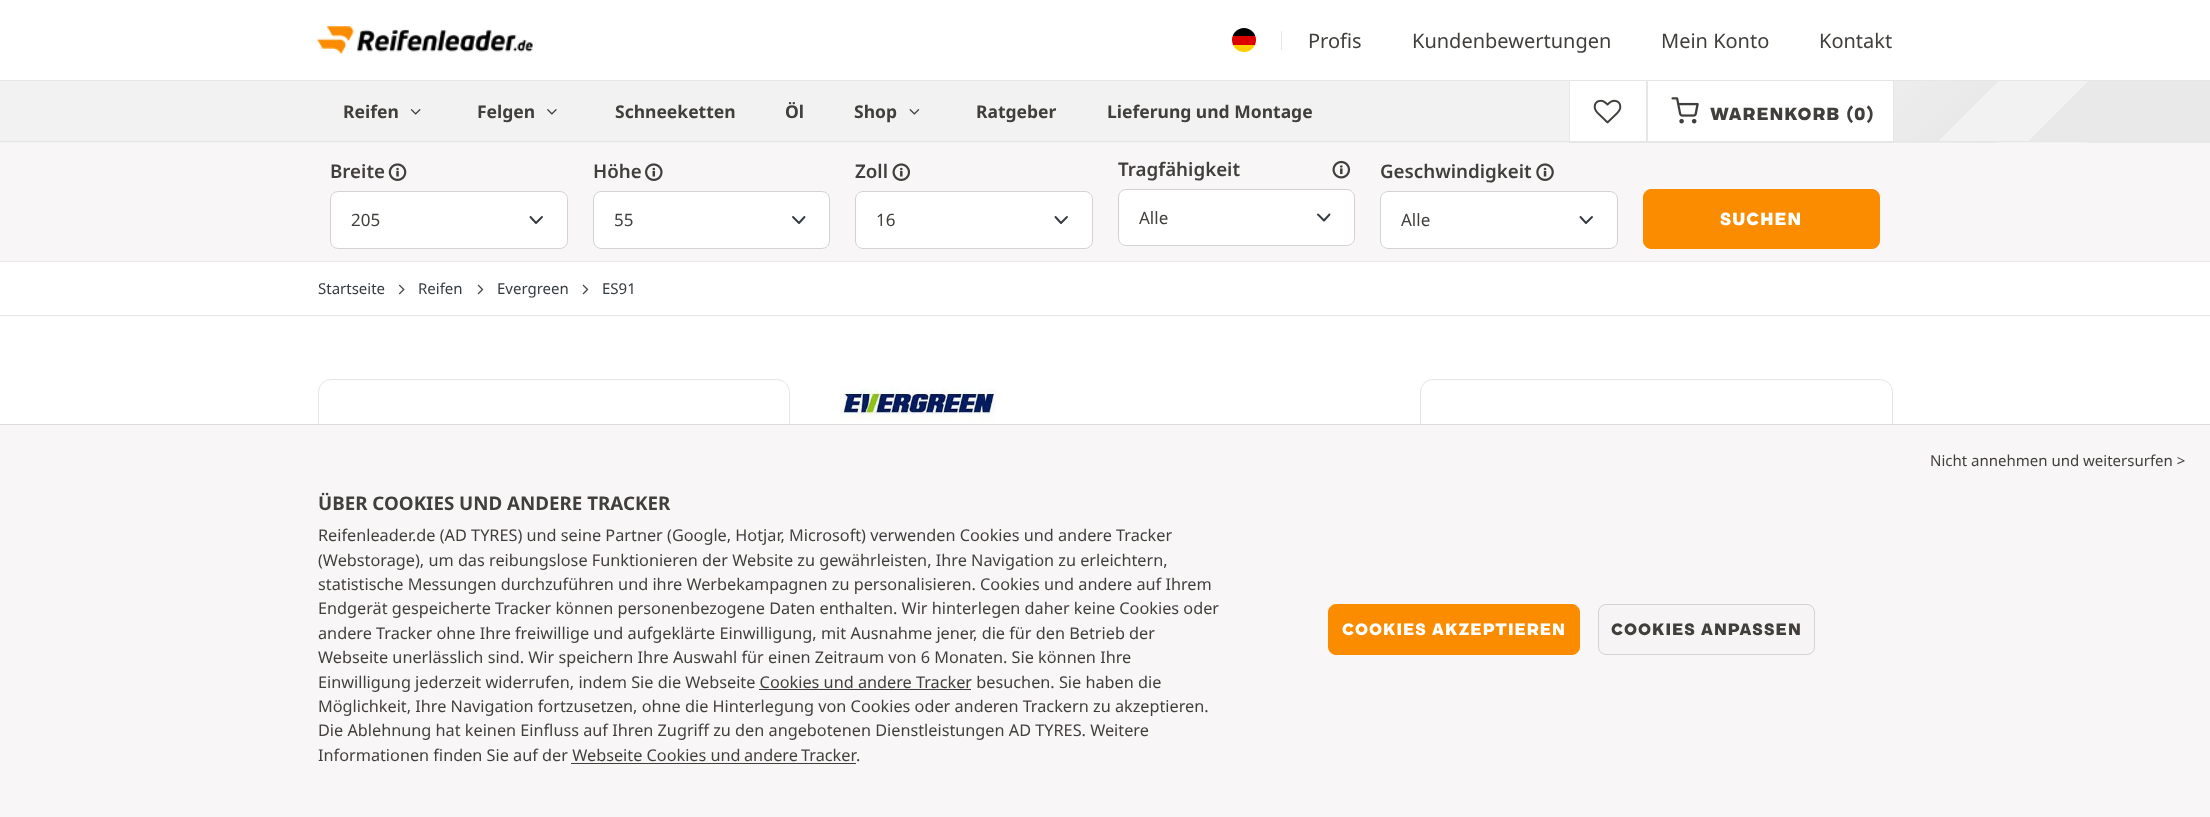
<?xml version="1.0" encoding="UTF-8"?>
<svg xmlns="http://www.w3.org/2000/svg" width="2210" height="817">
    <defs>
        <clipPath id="clip1"><rect x="1230" y="26" width="28" height="28" rx="14"/></clipPath>
        <linearGradient id="g1" gradientUnits="userSpaceOnUse" x1="537" y1="-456" x2="1673" y2="679"><stop offset="0.78" stop-color="#F2F2F2"/><stop offset="0.88" stop-color="#E9E9E9"/><stop offset="0.88" stop-color="#F2F2F2"/><stop offset="0.92" stop-color="#F2F2F2"/><stop offset="0.92" stop-color="#E9E9E9"/></linearGradient>
        <linearGradient id="g2" gradientUnits="userSpaceOnUse" x1="537" y1="-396" x2="1673" y2="739"><stop offset="0.78" stop-color="#F2F2F2"/><stop offset="0.88" stop-color="#E9E9E9"/><stop offset="0.88" stop-color="#F2F2F2"/><stop offset="0.92" stop-color="#F2F2F2"/><stop offset="0.92" stop-color="#E9E9E9"/></linearGradient>
    </defs>
    <rect width="100%" height="100%" fill="#FFFFFF"/>
    <image x="317" y="26" width="216" height="28" href="img_01.png"/>
    <g clip-path="url(#clip1)">
        <rect x="1233" y="45" width="22" height="7" fill="#FFCE00"/>
        <rect x="1232" y="28" width="24" height="8" fill="#000000"/>
    </g>
    <rect x="1232" y="36" width="24" height="9" fill="#DD0000"/>
    <circle cx="1244" cy="40" r="13.5" fill="none" stroke="#FFFFFF" stroke-width="3"/>
    <rect x="1281" y="31" width="1" height="19" fill="#E6E6E6"/>
    <text x="1308" y="48" font-family="Noto Sans" font-size="20" fill="#413F3C">Profis</text>
    <text x="1412" y="48" font-family="Noto Sans" font-size="20" fill="#413F3C">Kundenbewertungen</text>
    <text x="1661" y="48" font-family="Noto Sans" font-size="20" fill="#413F3C">Mein Konto</text>
    <text x="1819" y="48" font-family="Noto Sans" font-size="20" fill="#413F3C">Kontakt</text>
    <rect x="0" y="81" width="2210" height="60" fill="url(#g1)"/>
    <rect x="0" y="142" width="2210" height="1" fill="url(#g2)"/>
    <rect x="0" y="80" width="2210" height="1" fill="#E6E6E6"/>
    <rect x="0" y="141" width="2210" height="1" fill="#E6E6E6"/>
    <text x="343" y="118" font-family="Noto Sans" font-size="17.5" font-weight="700" fill="#413F3C">Reifen</text>
    <image x="410" y="109" width="11" height="6" href="img_02.png"/>
    <text x="477" y="118" font-family="Noto Sans" font-size="17.5" font-weight="700" fill="#413F3C">Felgen</text>
    <image x="547" y="109" width="10" height="6" href="img_03.png"/>
    <text x="615" y="118" font-family="Noto Sans" font-size="17.5" font-weight="700" fill="#413F3C">Schneeketten</text>
    <text x="785" y="118" font-family="Noto Sans" font-size="17.5" font-weight="700" fill="#413F3C">Öl</text>
    <text x="854" y="118" font-family="Noto Sans" font-size="17.5" font-weight="700" fill="#413F3C">Shop</text>
    <image x="909" y="109" width="11" height="6" href="img_04.png"/>
    <text x="976" y="118" font-family="Noto Sans" font-size="17.5" font-weight="700" fill="#413F3C">Ratgeber</text>
    <text x="1107" y="118" font-family="Noto Sans" font-size="17.5" font-weight="700" fill="#413F3C">Lieferung und Montage</text>
    <rect x="1570" y="81" width="323" height="60" fill="#FFFFFF"/>
    <image x="1593" y="99" width="29" height="25" href="img_05.png"/>
    <rect x="1569.5" y="80.5" width="78" height="62" fill="none" stroke="#E6E6E6"/>
    <image x="1671" y="97" width="28" height="27" href="img_06.png"/>
    <rect x="1646.5" y="80.5" width="247" height="62" fill="none" stroke="#E6E6E6"/>
    <text x="1710" y="120" font-family="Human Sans" font-size="18.75" font-weight="900" letter-spacing="1" fill="#413F3C">WARENKORB (0)</text>
    <rect x="0" y="143" width="2210" height="118" fill="#F8F6F7"/>
    <text x="330" y="178" font-family="Noto Sans" font-size="18.75" font-weight="600" fill="#413F3C">Breite</text>
    <image x="388" y="163" width="19" height="18" href="img_07.png"/>
    <rect x="330" y="191" width="238" height="58" rx="8" fill="#FFFFFF"/>
    <path d="M 530.5 217 L 536 223 L 542 217" fill="none" stroke="#343A40" stroke-width="1.9" stroke-linecap="round" stroke-linejoin="round"/>
    <rect x="330.5" y="191.5" width="237" height="57" rx="7.5" fill="none" stroke="#D3D3D3"/>
    <text x="351" y="226" font-family="Noto Sans" font-size="17" fill="#413F3C">205</text>
    <text x="593" y="178" font-family="Noto Sans" font-size="18.75" font-weight="600" fill="#413F3C">Höhe</text>
    <image x="645" y="163" width="18" height="18" href="img_08.png"/>
    <rect x="593" y="191" width="237" height="58" rx="8" fill="#FFFFFF"/>
    <path d="M 793 217 L 799 223 L 804.5 217" fill="none" stroke="#343A40" stroke-width="1.9" stroke-linecap="round" stroke-linejoin="round"/>
    <rect x="593.5" y="191.5" width="236" height="57" rx="7.5" fill="none" stroke="#D3D3D3"/>
    <text x="614" y="226" font-family="Noto Sans" font-size="17" fill="#413F3C">55</text>
    <text x="855" y="178" font-family="Noto Sans" font-size="18.75" font-weight="600" fill="#413F3C">Zoll</text>
    <image x="892" y="163" width="19" height="18" href="img_09.png"/>
    <rect x="855" y="191" width="238" height="58" rx="8" fill="#FFFFFF"/>
    <path d="M 1055.5 217 L 1061 223 L 1067 217" fill="none" stroke="#343A40" stroke-width="1.9" stroke-linecap="round" stroke-linejoin="round"/>
    <rect x="855.5" y="191.5" width="237" height="57" rx="7.5" fill="none" stroke="#D3D3D3"/>
    <text x="876" y="226" font-family="Noto Sans" font-size="17" fill="#413F3C">16</text>
    <text x="1118" y="176" font-family="Noto Sans" font-size="18.75" font-weight="600" fill="#413F3C">Tragfähigkeit</text>
    <image x="1332" y="160" width="19" height="19" href="img_10.png"/>
    <rect x="1118" y="189" width="237" height="57" rx="8" fill="#FFFFFF"/>
    <path d="M 1318 214.5 L 1324 220.5 L 1329.5 214.5" fill="none" stroke="#343A40" stroke-width="1.9" stroke-linecap="round" stroke-linejoin="round"/>
    <rect x="1118.5" y="189.5" width="236" height="56" rx="7.5" fill="none" stroke="#D3D3D3"/>
    <text x="1139" y="224" font-family="Noto Sans" font-size="17" fill="#413F3C">Alle</text>
    <text x="1380" y="178" font-family="Noto Sans" font-size="18.75" font-weight="600" fill="#413F3C">Geschwindigkeit</text>
    <image x="1536" y="163" width="18" height="18" href="img_11.png"/>
    <rect x="1380" y="191" width="238" height="58" rx="8" fill="#FFFFFF"/>
    <path d="M 1580.5 217 L 1586 223 L 1592 217" fill="none" stroke="#343A40" stroke-width="1.9" stroke-linecap="round" stroke-linejoin="round"/>
    <rect x="1380.5" y="191.5" width="237" height="57" rx="7.5" fill="none" stroke="#D3D3D3"/>
    <text x="1401" y="226" font-family="Noto Sans" font-size="17" fill="#413F3C">Alle</text>
    <rect x="1643.5" y="189.5" width="236" height="59" rx="7.5" fill="#FB8C00" stroke="#FB8C00"/>
    <text x="1720" y="225" font-family="Human Sans" font-size="18.5" font-weight="900" letter-spacing="1" fill="#FFFFFF">SUCHEN</text>
    <rect x="0" y="261" width="2210" height="1" fill="#E6E6E6"/>
    <rect x="0" y="315" width="2210" height="1" fill="#E6E6E6"/>
    <text x="318" y="294" font-family="Noto Sans" font-size="15" fill="#343A40">Startseite</text>
    <image x="398" y="284" width="7" height="11" href="img_12.png"/>
    <text x="418" y="294" font-family="Noto Sans" font-size="15" fill="#343A40">Reifen</text>
    <image x="477" y="284" width="7" height="11" href="img_13.png"/>
    <text x="497" y="294" font-family="Noto Sans" font-size="15" fill="#343A40">Evergreen</text>
    <image x="582" y="284" width="7" height="11" href="img_13.png"/>
    <text x="602" y="294" font-family="Noto Sans" font-size="15" fill="#343A40">ES91</text>
    <rect x="318.5" y="379.5" width="471" height="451" rx="12.5" fill="none" stroke="#E6E6E6"/>
    <image x="840" y="388" width="156" height="34" href="img_14.png"/>
    <rect x="1420.5" y="379.5" width="472" height="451" rx="12.5" fill="none" stroke="#E6E6E6"/>
    <rect x="0" y="425" width="2210" height="392" fill="#F8F6F7"/>
    <rect x="0" y="424" width="2210" height="1" fill="#DDDDDD"/>
    <text x="1930" y="466" font-family="Noto Sans" font-size="15" fill="#413F3C">Nicht annehmen und weitersurfen &gt;</text>
    <text x="318" y="510" font-family="Noto Sans" font-size="18.75" font-weight="700" fill="#413F3C">ÜBER COOKIES UND ANDERE TRACKER</text>
    <text font-family="Noto Sans" font-size="16.25" fill="#413F3C">
        <tspan x="318" y="541">Reifenleader.de (AD TYRES) und seine Partner (Google, Hotjar, Microsoft) verwenden Cookies und andere Tracker</tspan>
        <tspan x="318" y="566">(Webstorage), um das reibungslose Funktionieren der Website zu gewährleisten, Ihre Navigation zu erleichtern,</tspan>
        <tspan x="318" y="590">statistische Messungen durchzuführen und ihre Werbekampagnen zu personalisieren. Cookies und andere auf Ihrem</tspan>
        <tspan x="318" y="614">Endgerät gespeicherte Tracker können personenbezogene Daten enthalten. Wir hinterlegen daher keine Cookies oder</tspan>
        <tspan x="318" y="639">andere Tracker ohne Ihre freiwillige und aufgeklärte Einwilligung, mit Ausnahme jener, die für den Betrieb der</tspan>
        <tspan x="318" y="663">Webseite unerlässlich sind. Wir speichern Ihre Auswahl für einen Zeitraum von 6 Monaten. Sie können Ihre</tspan>
        <tspan x="318" y="688">Einwilligung jederzeit widerrufen, indem Sie die Webseite Cookies und andere Tracker besuchen. Sie haben die</tspan>
    </text>
    <rect x="759" y="689" width="212" height="1" fill="#413F3C"/>
    <text font-family="Noto Sans" font-size="16.25" fill="#413F3C">
        <tspan x="318" y="712">Möglichkeit, Ihre Navigation fortzusetzen, ohne die Hinterlegung von Cookies oder anderen Trackern zu akzeptieren.</tspan>
        <tspan x="318" y="736">Die Ablehnung hat keinen Einfluss auf Ihren Zugriff zu den angebotenen Dienstleistungen AD TYRES. Weitere</tspan>
        <tspan x="318" y="761">Informationen finden Sie auf der Webseite Cookies und</tspan>
    </text>
    <text x="744" y="761" word-spacing="-1" font-family="Noto Sans" font-size="16.25" fill="#413F3C">andere Tracker</text>
    <rect x="571" y="763" width="285" height="1" fill="#413F3C"/>
    <text x="856" y="761" font-family="Noto Sans" font-size="16.25" fill="#413F3C">.</text>
    <rect x="1328.5" y="604.5" width="251" height="50" rx="7.5" fill="#FB8C00" stroke="#FB8C00"/>
    <text x="1342" y="635" font-family="Human Sans" font-size="17.5" font-weight="900" letter-spacing="1" fill="#FFFFFF">COOKIES AKZEPTIEREN</text>
    <rect x="1598.5" y="604.5" width="216" height="50" rx="7.5" fill="#F6F4F4" stroke="#D3D3D3"/>
    <text x="1611" y="635" font-family="Human Sans" font-size="17.5" font-weight="900" letter-spacing="1" fill="#413F3C">COOKIES ANPASSEN</text>
</svg>
